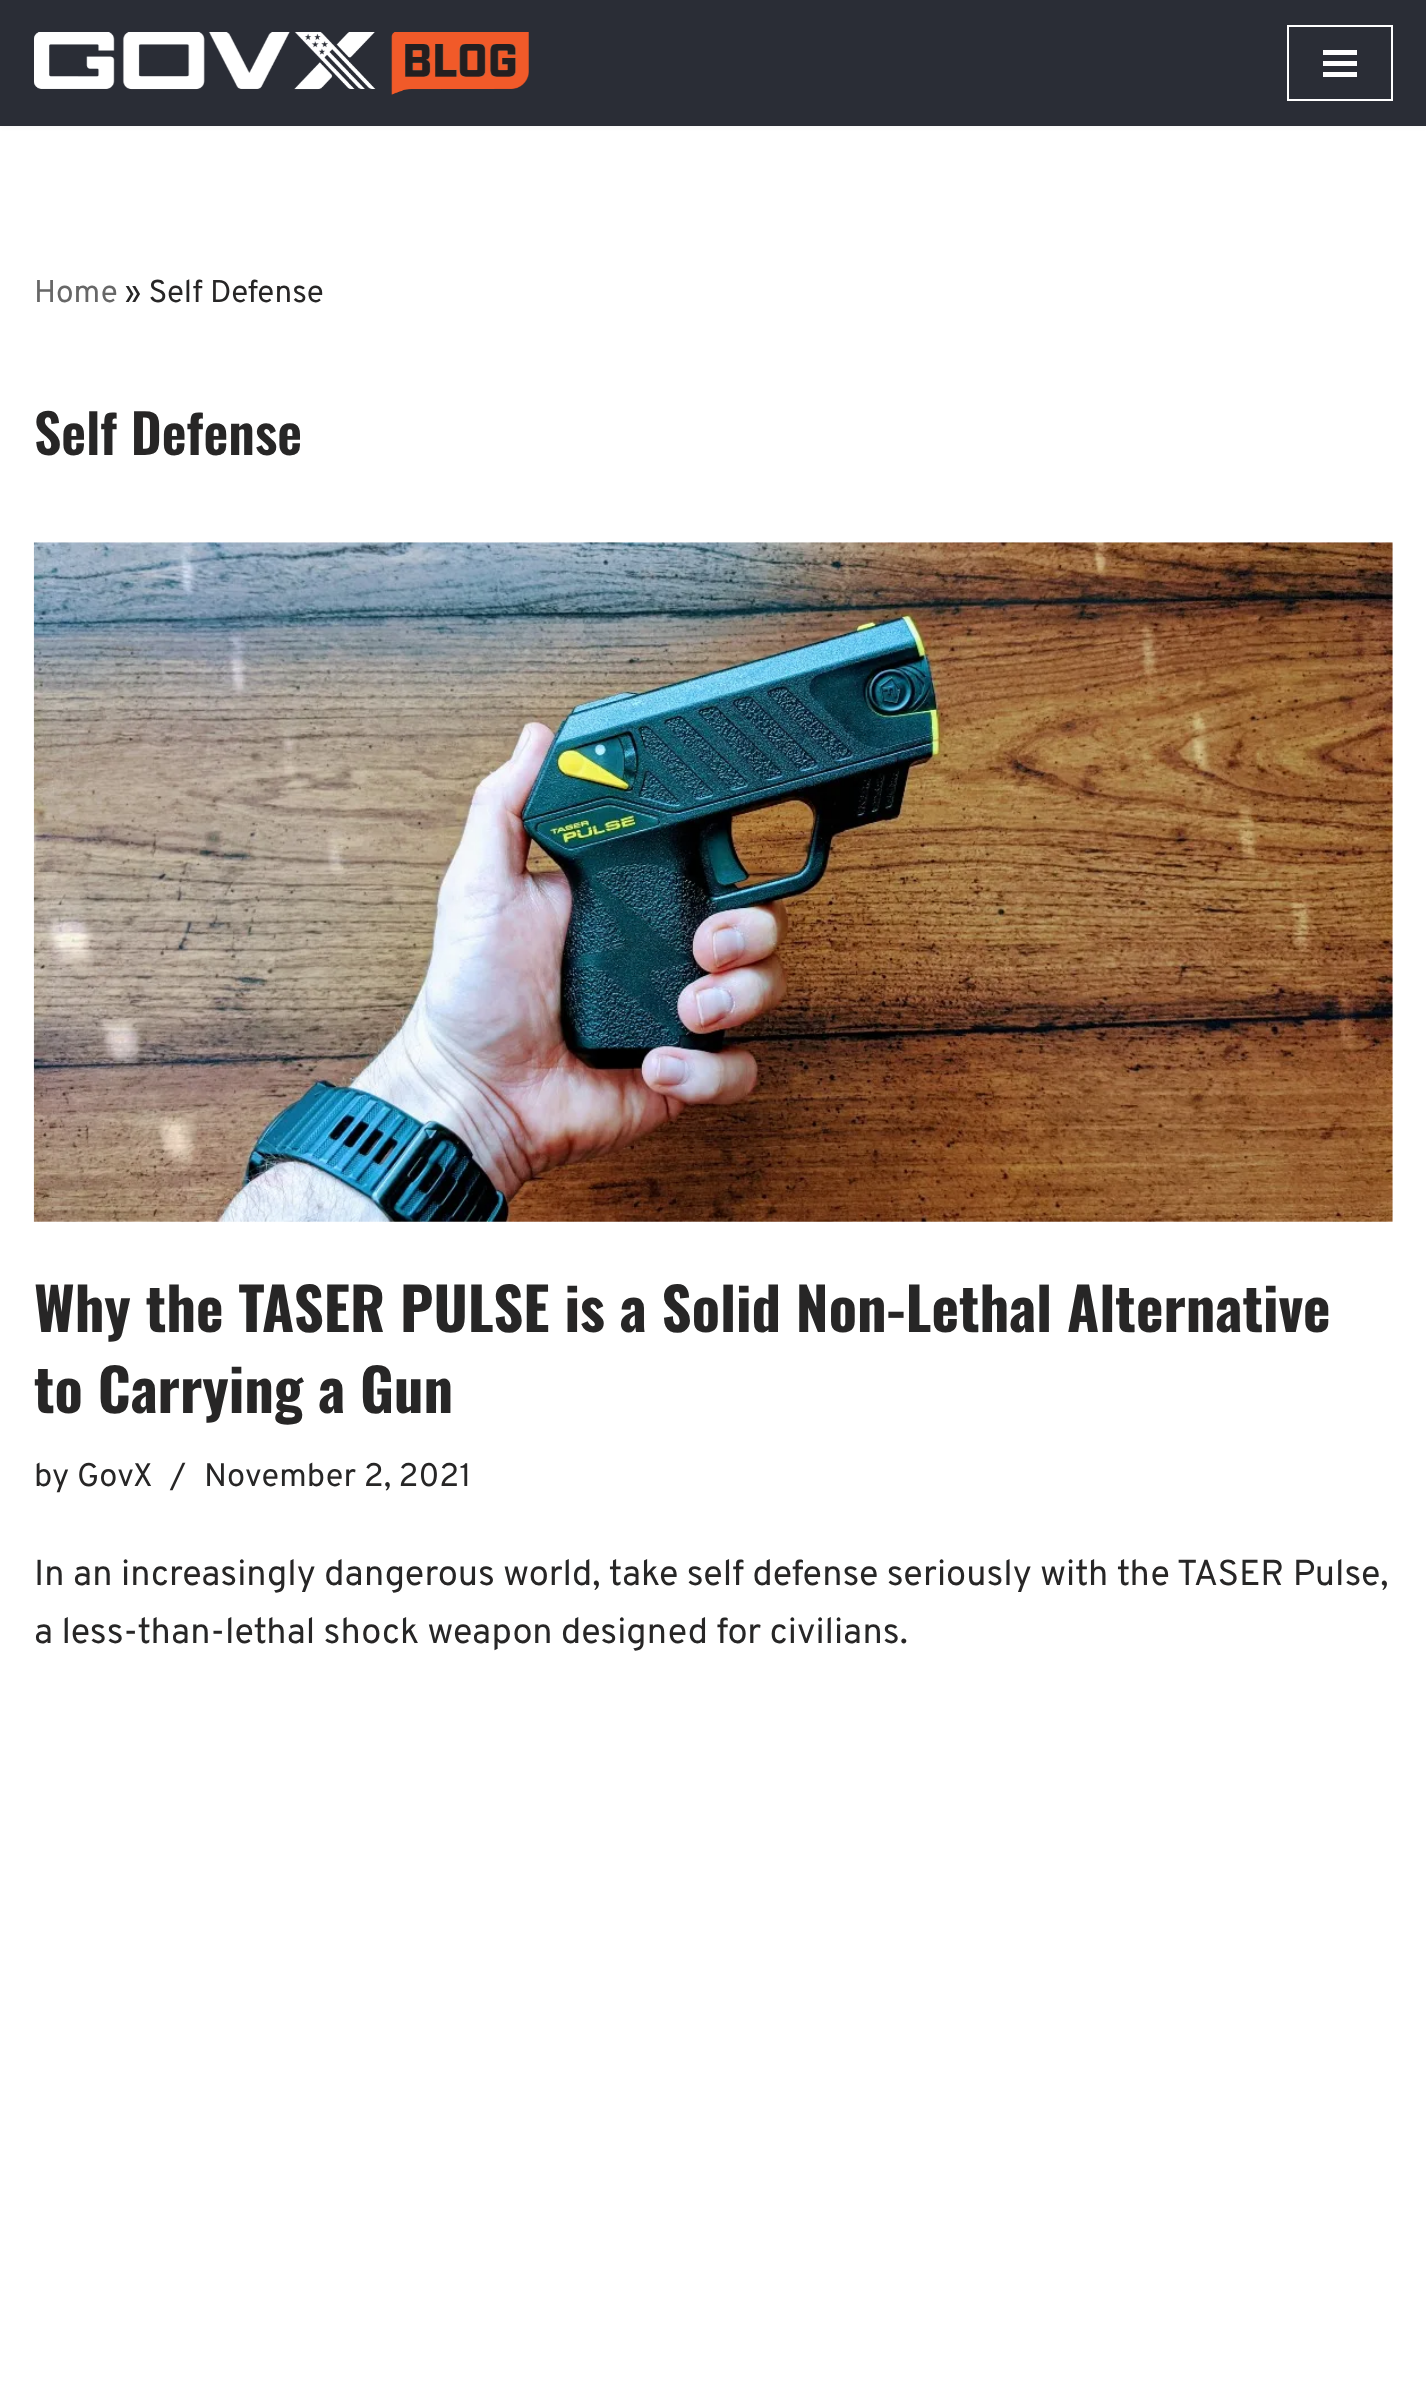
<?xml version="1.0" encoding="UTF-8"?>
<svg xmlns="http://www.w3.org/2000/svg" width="1426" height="2385">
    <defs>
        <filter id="blur1" x="-50%" y="-200%" width="200%" height="500%"><feGaussianBlur stdDeviation="3.5"/></filter>
    </defs>
    <rect width="100%" height="100%" fill="#FFFFFF"/>
    <rect x="0" y="-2" width="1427" height="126" fill="#000000" fill-opacity="0.1" filter="url(#blur1)"/>
    <rect x="0" y="0" width="1426" height="126" fill="#2A2D36"/>
    <image x="34" y="32" width="495" height="63" href="img_01.png"/>
    <rect x="1288" y="26" width="104" height="74" fill="none" stroke="#FFFFFF" stroke-width="2"/>
    <rect x="1323" y="50" width="34" height="5" fill="#FFFFFF"/>
    <rect x="1323" y="61" width="34" height="5" fill="#FFFFFF"/>
    <rect x="1323" y="72" width="34" height="5" fill="#FFFFFF"/>
    <text x="34" y="302" font-family="Overpass" font-size="31.5" fill="#676767">Home</text>
    <text x="125" y="302" font-family="Overpass" font-size="31.5" fill="#272626">» Self Defense</text>
    <text x="34" y="455" font-family="Oswald" font-size="54" font-weight="600" fill="#272626">Self Defense</text>
    <image x="33" y="542" width="1360" height="680" href="img_02.png"/>
    <text font-family="Oswald" font-size="58.5" font-weight="700" fill="#272626">
        <tspan x="34" y="1332">Why the TASER PULSE is a Solid Non-Lethal Alternative</tspan>
        <tspan x="34" y="1413">to Carrying a Gun</tspan>
    </text>
    <text x="34" y="1486" font-family="Overpass" font-size="32.5" fill="#272626">by GovX</text>
    <text x="170" y="1486" font-family="Overpass" font-size="32.5" fill="#272626">/</text>
    <text x="204" y="1486" font-family="Overpass" font-size="32.5" fill="#272626">November 2, 2021</text>
    <text font-family="Overpass" font-size="36" fill="#272626">
        <tspan x="34" y="1585">In an increasingly dangerous world, take self defense seriously with the TASER Pulse,</tspan>
        <tspan x="34" y="1643">a less-than-lethal shock weapon designed for civilians.</tspan>
    </text>
</svg>
